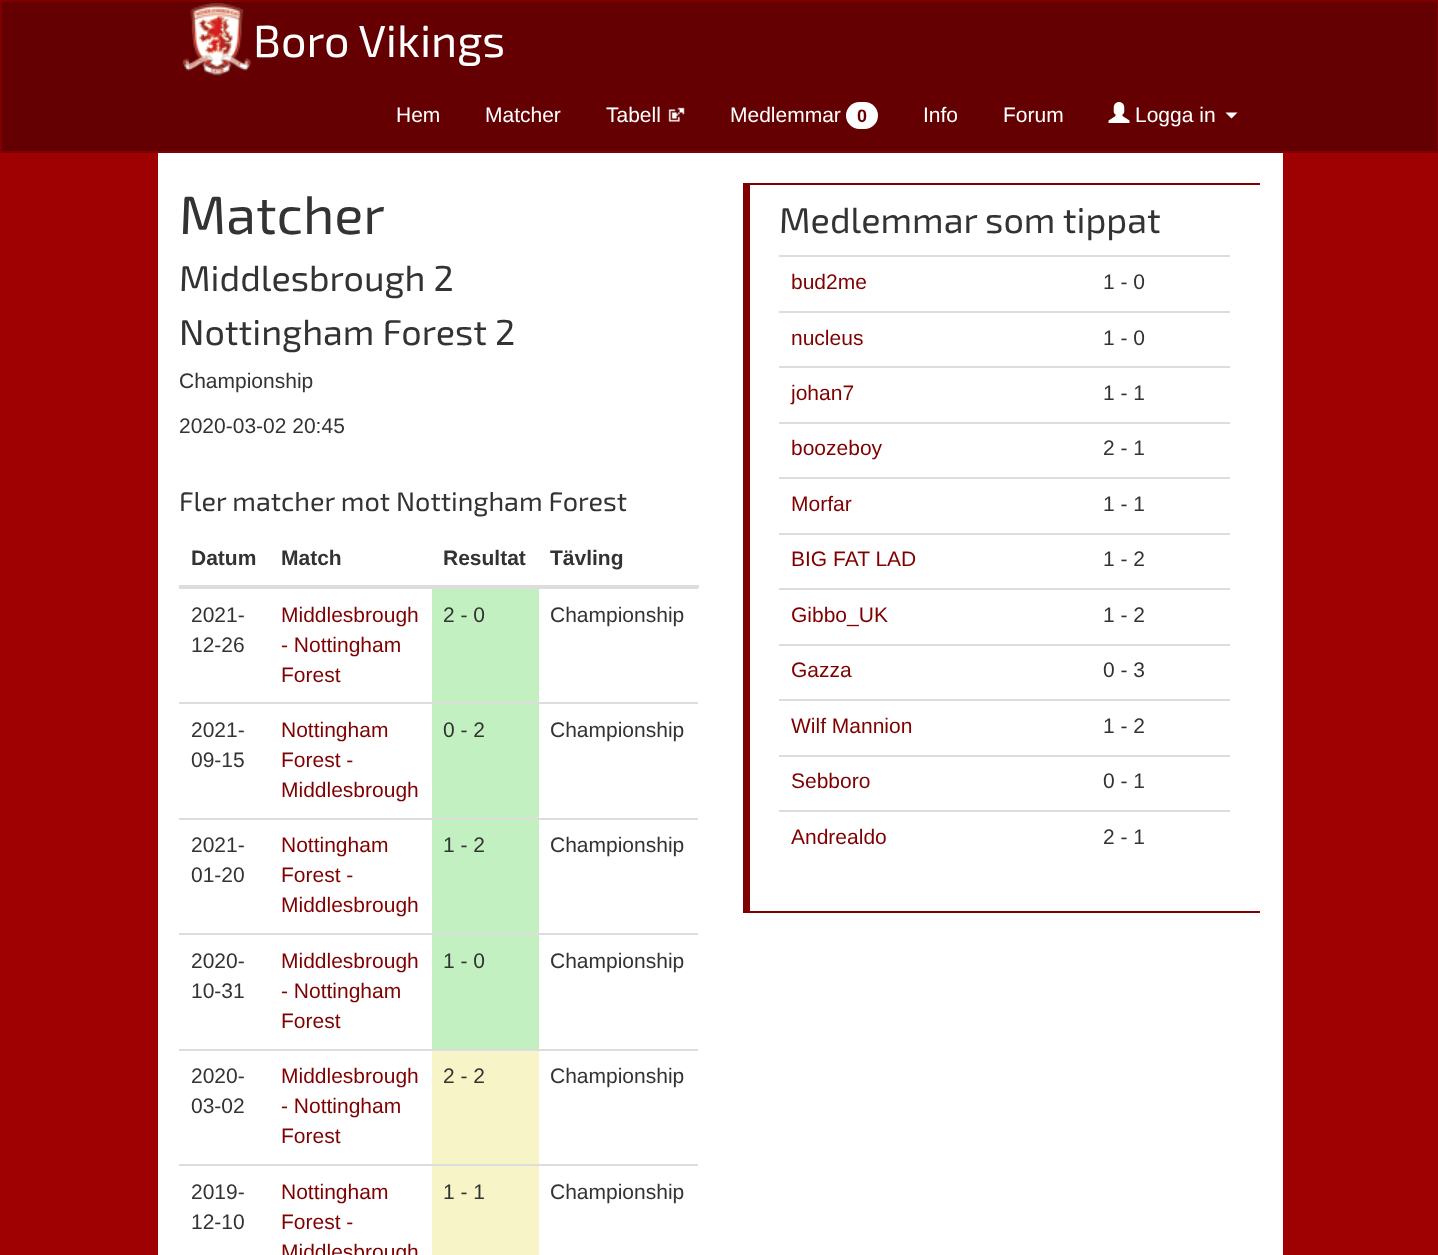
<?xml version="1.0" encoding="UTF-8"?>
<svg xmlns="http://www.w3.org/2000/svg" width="1438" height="1255">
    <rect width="100%" height="100%" fill="#9F0001"/>
    <rect x="1" y="1" width="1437" height="151" fill="#640001" stroke="#7F0001" stroke-width="2"/>
    <image x="182" y="2" width="69" height="74" href="img_01.png"/>
    <text x="253" y="57" font-family="'Exo 2'" font-size="45" fill="#FFFFFF">Boro Vikings</text>
    <text x="396" y="122" font-family="Liberation Sans" font-size="21" fill="#FFFFFF">Hem</text>
    <text x="485" y="122" font-family="Liberation Sans" font-size="21" fill="#FFFFFF">Matcher</text>
    <text x="606" y="122" font-family="Liberation Sans" font-size="21" fill="#FFFFFF">Tabell</text>
    <image x="668" y="107" width="17" height="15" href="img_02.png"/>
    <text x="730" y="122" font-family="Liberation Sans" font-size="21" fill="#FFFFFF">Medlemmar</text>
    <rect x="846" y="102" width="32" height="27" rx="13.5" fill="#FFFFFF"/>
    <text x="857" y="122" font-family="Liberation Sans" font-size="18" font-weight="700" fill="#640001">0</text>
    <text x="923" y="122" font-family="Liberation Sans" font-size="21" fill="#FFFFFF">Info</text>
    <text x="1003" y="122" font-family="Liberation Sans" font-size="21" fill="#FFFFFF">Forum</text>
    <image x="1108" y="102" width="22" height="21" href="img_03.png"/>
    <text x="1135" y="122" font-family="Liberation Sans" font-size="21" fill="#FFFFFF">Logga in</text>
    <path d="M 1225.5 112.5 H 1237.5 L 1231.5 118.5 Z" fill="#FFFFFF"/>
    <rect x="158" y="153" width="1125" height="1102" fill="#FFFFFF"/>
    <text x="179" y="234" font-family="'Exo 2'" font-size="54" fill="#333333">Matcher</text>
    <text font-family="'Exo 2'" font-size="36" fill="#333333">
        <tspan x="179" y="291">Middlesbrough 2</tspan>
        <tspan x="179" y="345">Nottingham Forest 2</tspan>
    </text>
    <text x="179" y="388" font-family="Liberation Sans" font-size="21" fill="#333333">Championship</text>
    <text x="179" y="433" font-family="Liberation Sans" font-size="21" fill="#333333">2020-03-02 20:45</text>
    <text x="179" y="511" font-family="'Exo 2'" font-size="27" fill="#333333">Fler matcher mot Nottingham Forest</text>
    <text x="191" y="565" font-family="Liberation Sans" font-size="21" font-weight="700" fill="#333333">Datum</text>
    <text x="281" y="565" font-family="Liberation Sans" font-size="21" font-weight="700" fill="#333333">Match</text>
    <text x="443" y="565" font-family="Liberation Sans" font-size="21" font-weight="700" fill="#333333">Resultat</text>
    <rect x="179" y="585" width="520" height="3" fill="#DDDDDD"/>
    <text x="550" y="565" font-family="Liberation Sans" font-size="21" font-weight="700" fill="#333333">Tävling</text>
    <text font-family="Liberation Sans" font-size="21" fill="#333333">
        <tspan x="191" y="622">2021-</tspan>
        <tspan x="191" y="652">12-26</tspan>
    </text>
    <text font-family="Liberation Sans" font-size="21" fill="#7F0001">
        <tspan x="281" y="622">Middlesbrough</tspan>
        <tspan x="281" y="652">- Nottingham</tspan>
        <tspan x="281" y="682">Forest</tspan>
    </text>
    <rect x="432" y="589" width="107" height="113" fill="#C2F0C0"/>
    <text x="443" y="622" font-family="Liberation Sans" font-size="21" fill="#333333">2 - 0</text>
    <rect x="179" y="588" width="519" height="1" fill="#DDDDDD"/>
    <text x="550" y="622" font-family="Liberation Sans" font-size="21" fill="#333333">Championship</text>
    <text font-family="Liberation Sans" font-size="21" fill="#333333">
        <tspan x="191" y="737">2021-</tspan>
        <tspan x="191" y="767">09-15</tspan>
    </text>
    <text font-family="Liberation Sans" font-size="21" fill="#7F0001">
        <tspan x="281" y="737">Nottingham</tspan>
        <tspan x="281" y="767">Forest -</tspan>
        <tspan x="281" y="797">Middlesbrough</tspan>
    </text>
    <rect x="432" y="704" width="107" height="114" fill="#C2F0C0"/>
    <text x="443" y="737" font-family="Liberation Sans" font-size="21" fill="#333333">0 - 2</text>
    <rect x="179" y="702" width="519" height="2" fill="#DDDDDD"/>
    <text x="550" y="737" font-family="Liberation Sans" font-size="21" fill="#333333">Championship</text>
    <text font-family="Liberation Sans" font-size="21" fill="#333333">
        <tspan x="191" y="852">2021-</tspan>
        <tspan x="191" y="882">01-20</tspan>
    </text>
    <text font-family="Liberation Sans" font-size="21" fill="#7F0001">
        <tspan x="281" y="852">Nottingham</tspan>
        <tspan x="281" y="882">Forest -</tspan>
        <tspan x="281" y="912">Middlesbrough</tspan>
    </text>
    <rect x="432" y="820" width="107" height="113" fill="#C2F0C0"/>
    <text x="443" y="852" font-family="Liberation Sans" font-size="21" fill="#333333">1 - 2</text>
    <rect x="179" y="818" width="519" height="2" fill="#DDDDDD"/>
    <text x="550" y="852" font-family="Liberation Sans" font-size="21" fill="#333333">Championship</text>
    <text font-family="Liberation Sans" font-size="21" fill="#333333">
        <tspan x="191" y="968">2020-</tspan>
        <tspan x="191" y="998">10-31</tspan>
    </text>
    <text font-family="Liberation Sans" font-size="21" fill="#7F0001">
        <tspan x="281" y="968">Middlesbrough</tspan>
        <tspan x="281" y="998">- Nottingham</tspan>
        <tspan x="281" y="1028">Forest</tspan>
    </text>
    <rect x="432" y="935" width="107" height="114" fill="#C2F0C0"/>
    <text x="443" y="968" font-family="Liberation Sans" font-size="21" fill="#333333">1 - 0</text>
    <rect x="179" y="933" width="519" height="2" fill="#DDDDDD"/>
    <text x="550" y="968" font-family="Liberation Sans" font-size="21" fill="#333333">Championship</text>
    <text font-family="Liberation Sans" font-size="21" fill="#333333">
        <tspan x="191" y="1083">2020-</tspan>
        <tspan x="191" y="1113">03-02</tspan>
    </text>
    <text font-family="Liberation Sans" font-size="21" fill="#7F0001">
        <tspan x="281" y="1083">Middlesbrough</tspan>
        <tspan x="281" y="1113">- Nottingham</tspan>
        <tspan x="281" y="1143">Forest</tspan>
    </text>
    <rect x="432" y="1051" width="107" height="113" fill="#F7F5C8"/>
    <text x="443" y="1083" font-family="Liberation Sans" font-size="21" fill="#333333">2 - 2</text>
    <rect x="179" y="1049" width="519" height="2" fill="#DDDDDD"/>
    <text x="550" y="1083" font-family="Liberation Sans" font-size="21" fill="#333333">Championship</text>
    <text font-family="Liberation Sans" font-size="21" fill="#333333">
        <tspan x="191" y="1199">2019-</tspan>
        <tspan x="191" y="1229">12-10</tspan>
    </text>
    <text font-family="Liberation Sans" font-size="21" fill="#7F0001">
        <tspan x="281" y="1199">Nottingham</tspan>
        <tspan x="281" y="1229">Forest -</tspan>
        <tspan x="281" y="1259">Middlesbrough</tspan>
    </text>
    <rect x="432" y="1166" width="107" height="89" fill="#F7F5C8"/>
    <text x="443" y="1199" font-family="Liberation Sans" font-size="21" fill="#333333">1 - 1</text>
    <rect x="179" y="1164" width="519" height="2" fill="#DDDDDD"/>
    <text x="550" y="1199" font-family="Liberation Sans" font-size="21" fill="#333333">Championship</text>
    <rect x="743" y="183" width="517" height="2" fill="#7F0001"/>
    <rect x="743" y="911" width="517" height="2" fill="#7F0001"/>
    <rect x="743" y="183" width="7" height="729" fill="#7F0001"/>
    <text x="779" y="233" font-family="'Exo 2'" font-size="36" fill="#333333">Medlemmar som tippat</text>
    <text x="791" y="289" font-family="Liberation Sans" font-size="21" fill="#7F0001">bud2me</text>
    <rect x="779" y="255" width="451" height="2" fill="#DDDDDD"/>
    <text x="1103" y="289" font-family="Liberation Sans" font-size="21" fill="#333333">1 - 0</text>
    <text x="791" y="345" font-family="Liberation Sans" font-size="21" fill="#7F0001">nucleus</text>
    <rect x="779" y="311" width="451" height="2" fill="#DDDDDD"/>
    <text x="1103" y="345" font-family="Liberation Sans" font-size="21" fill="#333333">1 - 0</text>
    <text x="791" y="400" font-family="Liberation Sans" font-size="21" fill="#7F0001">johan7</text>
    <rect x="779" y="366" width="451" height="2" fill="#DDDDDD"/>
    <text x="1103" y="400" font-family="Liberation Sans" font-size="21" fill="#333333">1 - 1</text>
    <text x="791" y="455" font-family="Liberation Sans" font-size="21" fill="#7F0001">boozeboy</text>
    <rect x="779" y="422" width="451" height="2" fill="#DDDDDD"/>
    <text x="1103" y="455" font-family="Liberation Sans" font-size="21" fill="#333333">2 - 1</text>
    <text x="791" y="511" font-family="Liberation Sans" font-size="21" fill="#7F0001">Morfar</text>
    <rect x="779" y="477" width="451" height="2" fill="#DDDDDD"/>
    <text x="1103" y="511" font-family="Liberation Sans" font-size="21" fill="#333333">1 - 1</text>
    <text x="791" y="566" font-family="Liberation Sans" font-size="21" fill="#7F0001">BIG FAT LAD</text>
    <rect x="779" y="533" width="451" height="2" fill="#DDDDDD"/>
    <text x="1103" y="566" font-family="Liberation Sans" font-size="21" fill="#333333">1 - 2</text>
    <text x="791" y="622" font-family="Liberation Sans" font-size="21" fill="#7F0001">Gibbo_UK</text>
    <rect x="779" y="588" width="451" height="2" fill="#DDDDDD"/>
    <text x="1103" y="622" font-family="Liberation Sans" font-size="21" fill="#333333">1 - 2</text>
    <text x="791" y="677" font-family="Liberation Sans" font-size="21" fill="#7F0001">Gazza</text>
    <rect x="779" y="644" width="451" height="2" fill="#DDDDDD"/>
    <text x="1103" y="677" font-family="Liberation Sans" font-size="21" fill="#333333">0 - 3</text>
    <text x="791" y="733" font-family="Liberation Sans" font-size="21" fill="#7F0001">Wilf Mannion</text>
    <rect x="779" y="699" width="451" height="2" fill="#DDDDDD"/>
    <text x="1103" y="733" font-family="Liberation Sans" font-size="21" fill="#333333">1 - 2</text>
    <text x="791" y="788" font-family="Liberation Sans" font-size="21" fill="#7F0001">Sebboro</text>
    <rect x="779" y="755" width="451" height="2" fill="#DDDDDD"/>
    <text x="1103" y="788" font-family="Liberation Sans" font-size="21" fill="#333333">0 - 1</text>
    <text x="791" y="844" font-family="Liberation Sans" font-size="21" fill="#7F0001">Andrealdo</text>
    <rect x="779" y="810" width="451" height="2" fill="#DDDDDD"/>
    <text x="1103" y="844" font-family="Liberation Sans" font-size="21" fill="#333333">2 - 1</text>
</svg>
